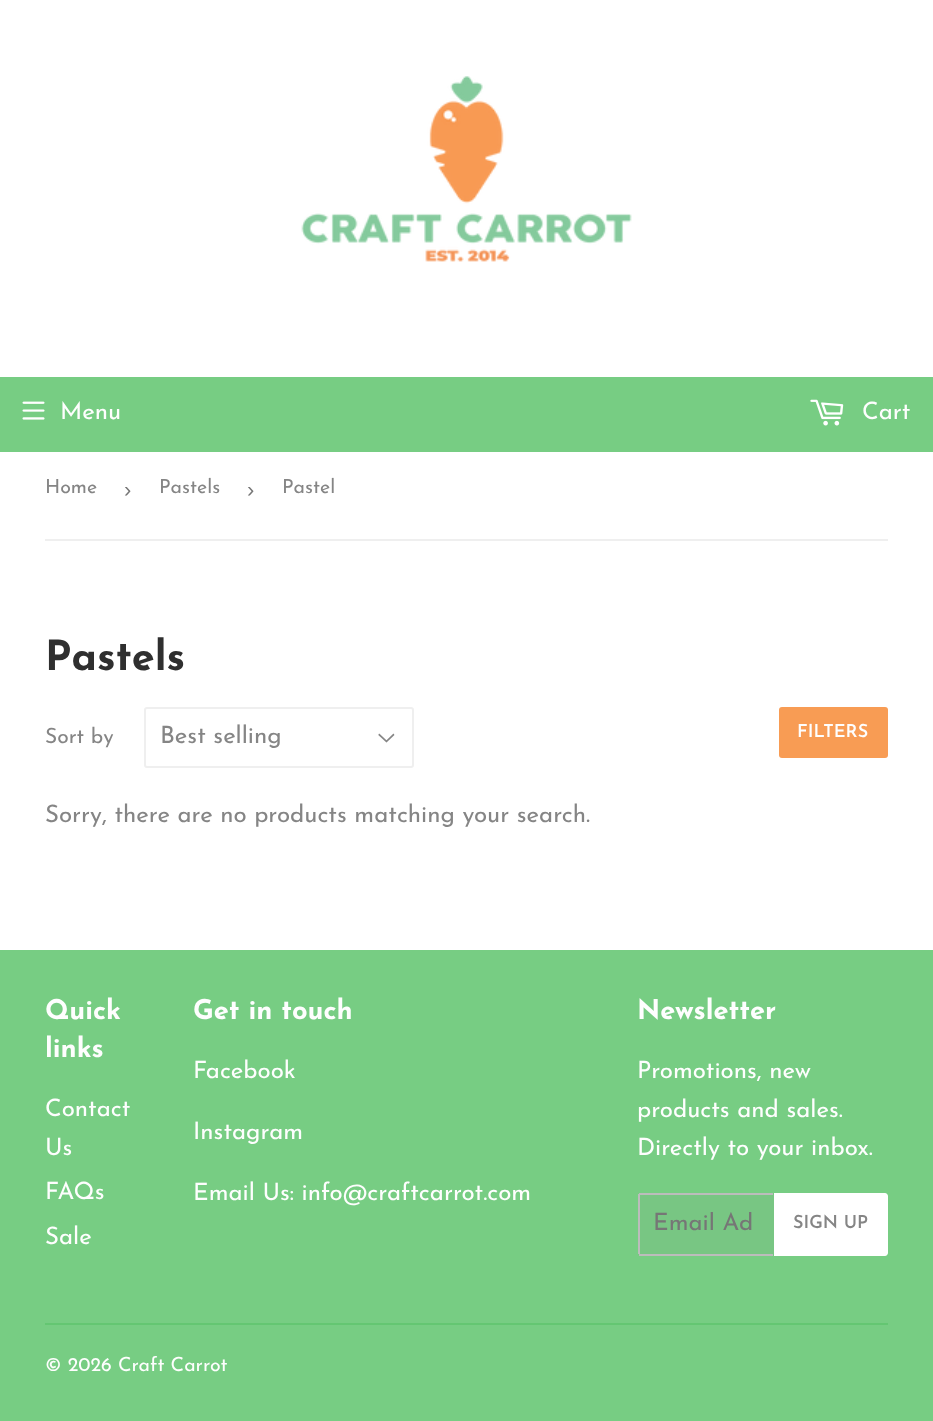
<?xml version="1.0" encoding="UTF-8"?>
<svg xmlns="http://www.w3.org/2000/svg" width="933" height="1421">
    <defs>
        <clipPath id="clip1"><rect x="654" y="1212" width="105" height="24"/></clipPath>
    </defs>
    <rect width="100%" height="100%" fill="#FFFFFF"/>
    <image x="301" y="76" width="331" height="186" href="img_01.png"/>
    <rect x="0" y="377" width="933" height="75" fill="#77CD83"/>
    <image x="22" y="401" width="23" height="19" href="img_02.png"/>
    <text x="60" y="419" font-family="Josefin Sans" font-size="24" fill="#FEFEFE">Menu</text>
    <image x="810" y="399" width="34" height="27" href="img_03.png"/>
    <text x="862" y="419" font-family="Josefin Sans" font-size="24" fill="#FEFEFE">Cart</text>
    <rect x="45" y="539" width="843" height="2" fill="#EFEFEF"/>
    <text x="45" y="493" font-family="Josefin Sans" font-size="19.5" fill="#858585">Home</text>
    <text x="124" y="497" font-family="Liberation Sans" font-size="22" fill="#767676">›</text>
    <text x="159" y="493" font-family="Josefin Sans" font-size="19.5" fill="#858585">Pastels</text>
    <text x="247" y="497" font-family="Liberation Sans" font-size="22" fill="#767676">›</text>
    <text x="282" y="493" font-family="Josefin Sans" font-size="19.5" fill="#858585">Pastel</text>
    <text x="45" y="670" font-family="Josefin Sans" font-size="41.5" font-weight="700" fill="#2F2F2F">Pastels</text>
    <text x="45" y="743" font-family="Josefin Sans" font-size="21" fill="#858585">Sort by</text>
    <image x="378" y="733" width="17" height="10" href="img_04.png"/>
    <rect x="145" y="708" width="268" height="59" rx="2" fill="none" stroke="#EFEFEF" stroke-width="2"/>
    <text x="160" y="743" font-family="Josefin Sans" font-size="24" fill="#858585">Best selling</text>
    <rect x="779" y="707" width="109" height="51" rx="3" fill="#F89C54"/>
    <text x="797" y="737" font-family="Josefin Sans" font-size="18" font-weight="600" fill="#FEFEFE">FILTERS</text>
    <text x="45" y="822" font-family="Josefin Sans" font-size="24" fill="#858585">Sorry, there are no products matching your search.</text>
    <rect x="0" y="950" width="933" height="471" fill="#77CD83"/>
    <text font-family="Josefin Sans" font-size="27.25" font-weight="700" fill="#FEFEFE">
        <tspan x="45" y="1019">Quick</tspan>
        <tspan x="45" y="1057">links</tspan>
    </text>
    <text font-family="Josefin Sans" font-size="24" fill="#FEFEFE">
        <tspan x="45" y="1116">Contact</tspan>
        <tspan x="45" y="1155">Us</tspan>
        <tspan x="45" y="1199">FAQs</tspan>
        <tspan x="45" y="1244">Sale</tspan>
    </text>
    <text x="193" y="1019" font-family="Josefin Sans" font-size="27.25" font-weight="700" fill="#FEFEFE">Get in touch</text>
    <text x="193" y="1078" font-family="Josefin Sans" font-size="24" fill="#FEFEFE">Facebook</text>
    <text x="193" y="1139" font-family="Josefin Sans" font-size="24" fill="#FEFEFE">Instagram</text>
    <text x="193" y="1200" font-family="Josefin Sans" font-size="24" fill="#FEFEFE">Email Us: info@craftcarrot.com</text>
    <text x="637" y="1019" font-family="Josefin Sans" font-size="27.25" font-weight="700" fill="#FEFEFE">Newsletter</text>
    <text font-family="Josefin Sans" font-size="24" fill="#FEFEFE">
        <tspan x="637" y="1078">Promotions, new</tspan>
        <tspan x="637" y="1117">products and sales.</tspan>
        <tspan x="637" y="1155">Directly to your inbox.</tspan>
    </text>
    <rect x="638" y="1193" width="136" height="63" rx="3" fill="#78C683"/>
    <rect x="639" y="1193" width="134" height="2" fill="#BCBCBC"/>
    <rect x="639" y="1254" width="134" height="2" fill="#BCBCBC"/>
    <rect x="638" y="1194" width="2" height="60" fill="#BCBCBC"/>
    <g clip-path="url(#clip1)">
        <text x="653" y="1230" font-family="Josefin Sans" font-size="24" fill="#767676">Email Ad</text>
    </g>
    <path d="M 774 1193 H 885 C 886.5 1193 888 1194.5 888 1196 V 1253 C 888 1254.5 886.5 1256 885 1256 H 774 Z" fill="#FFFFFF"/>
    <text x="793" y="1228" font-family="Josefin Sans" font-size="18" font-weight="600" fill="#858585">SIGN UP</text>
    <rect x="45" y="1323" width="843" height="2" fill="#64C672"/>
    <text x="45" y="1371" font-family="Josefin Sans" font-size="19.5" fill="#FEFEFE">© 2026 Craft Carrot</text>
</svg>
